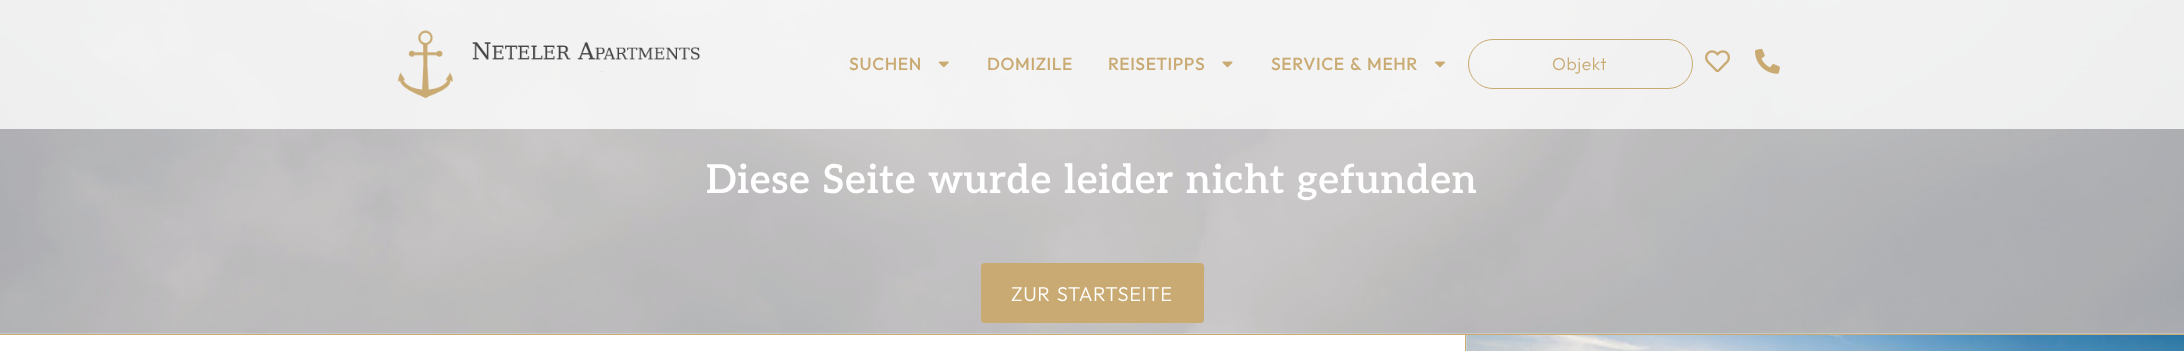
<?xml version="1.0" encoding="UTF-8"?>
<svg xmlns="http://www.w3.org/2000/svg" width="2184" height="351">
    <rect width="100%" height="100%" fill="#FFFFFF"/>
    <image x="0" y="0" width="2184" height="334" href="img_07.png"/>
    <rect x="0" y="0" width="2184" height="129" fill="#FFFFFF" fill-opacity="0.79"/>
    <image x="398" y="30" width="302" height="69" href="img_01.png"/>
    <text x="849" y="70" font-family="Outfit" font-size="17.5" font-weight="500" letter-spacing="0.6" fill="#C9AA72">SUCHEN</text>
    <image x="938" y="61" width="11" height="7" href="img_02.png"/>
    <text x="987" y="70" font-family="Outfit" font-size="17.5" font-weight="500" letter-spacing="0.6" fill="#C9AA72">DOMIZILE</text>
    <text x="1108" y="70" font-family="Outfit" font-size="17.5" font-weight="500" letter-spacing="0.6" fill="#C9AA72">REISETIPPS</text>
    <image x="1222" y="61" width="11" height="7" href="img_03.png"/>
    <text x="1271" y="70" word-spacing="1.25" font-family="Outfit" font-size="17.5" font-weight="500" letter-spacing="0.6" fill="#C9AA72">SERVICE &amp; MEHR</text>
    <image x="1435" y="61" width="10" height="7" href="img_04.png"/>
    <rect x="1468.5" y="39.5" width="224" height="49" rx="24.5" fill="none" stroke="#C9AA72"/>
    <text x="1552" y="70" font-family="Outfit" font-size="17.5" font-weight="300" letter-spacing="0.6" fill="#C9AA72">Objekt</text>
    <image x="1705" y="50" width="25" height="23" href="img_05.png"/>
    <image x="1755" y="49" width="25" height="25" href="img_06.png"/>
    <text x="706" y="193" word-spacing="1.25" font-family="Aleo" font-size="40" font-weight="600" letter-spacing="0.6" fill="#FFFFFF">Diese Seite wurde leider nicht gefunden</text>
    <rect x="981" y="263" width="223" height="60" rx="4" fill="#C9AA72"/>
    <text x="1011" y="301" word-spacing="1.25" font-family="Outfit" font-size="20" font-weight="300" letter-spacing="0.6" fill="#FFFFFF">ZUR STARTSEITE</text>
    <rect x="0" y="334" width="2184" height="1" fill="#C9AA72"/>
    <rect x="1465" y="335" width="1" height="16" fill="#C9AA72"/>
    <image x="1466" y="335" width="718" height="16" href="img_08.png"/>
</svg>
